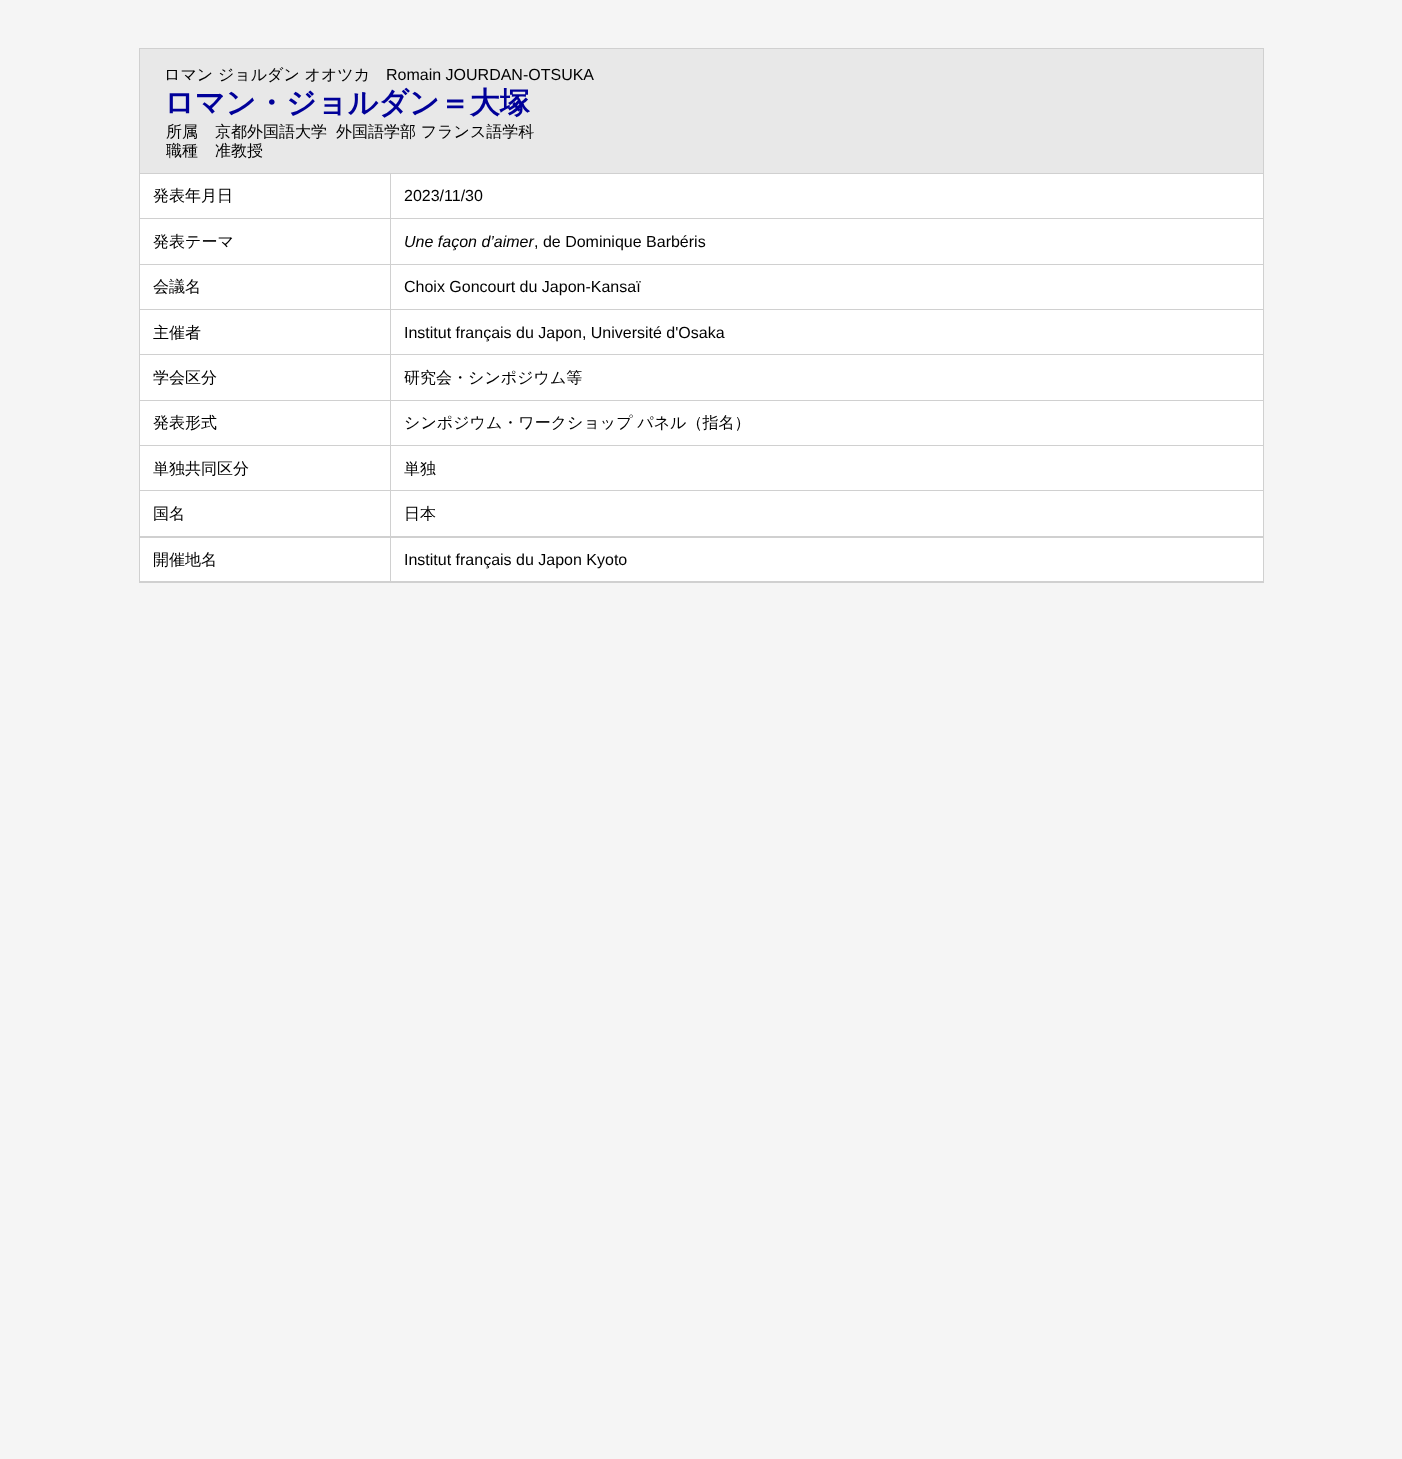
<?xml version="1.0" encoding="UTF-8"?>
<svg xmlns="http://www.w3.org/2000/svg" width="1402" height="1459">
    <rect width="100%" height="100%" fill="#F5F5F5"/>
    <rect x="139" y="48" width="1125" height="535" fill="#D0D0D0"/>
    <rect x="140" y="49" width="1123" height="124" fill="#E8E8E8"/>
    <text x="164" y="80" font-family="WenQuanYi Zen Hei" font-size="16" font-weight="500" fill="#000000">ロマン ジョルダン オオツカ</text>
    <text x="386" y="80" font-family="Liberation Sans" font-size="16" fill="#000000">Romain JOURDAN-OTSUKA</text>
    <text x="164" y="113" font-family="WenQuanYi Zen Hei" font-size="30" font-weight="700" fill="#000099">ロマン・ジョルダン＝大塚</text>
    <text x="166" y="137" font-family="WenQuanYi Zen Hei" font-size="16" font-weight="500" fill="#000000">所属</text>
    <text x="215" y="137" font-family="WenQuanYi Zen Hei" font-size="16" font-weight="500" fill="#000000">京都外国語大学</text>
    <text x="336" y="137" font-family="WenQuanYi Zen Hei" font-size="16" font-weight="500" fill="#000000">外国語学部 フランス語学科</text>
    <text x="166" y="156" font-family="WenQuanYi Zen Hei" font-size="16" font-weight="500" fill="#000000">職種</text>
    <text x="215" y="156" font-family="WenQuanYi Zen Hei" font-size="16" font-weight="500" fill="#000000">准教授</text>
    <rect x="140" y="174" width="250" height="44" fill="#FFFFFF"/>
    <text x="153" y="201" font-family="WenQuanYi Zen Hei" font-size="16" font-weight="500" fill="#000000">発表年月日</text>
    <rect x="391" y="174" width="872" height="44" fill="#FFFFFF"/>
    <text x="404" y="201" font-family="Liberation Sans" font-size="16" fill="#000000">2023/11/30</text>
    <rect x="140" y="219" width="250" height="45" fill="#FFFFFF"/>
    <text x="153" y="247" font-family="WenQuanYi Zen Hei" font-size="16" font-weight="500" fill="#000000">発表テーマ</text>
    <rect x="391" y="219" width="872" height="45" fill="#FFFFFF"/>
    <text x="404" y="247" font-family="Liberation Sans" font-size="16" font-style="italic" fill="#000000">Une façon d’aimer</text>
    <text x="534" y="247" font-family="Liberation Sans" font-size="16" fill="#000000">, de Dominique Barbéris</text>
    <rect x="140" y="265" width="250" height="44" fill="#FFFFFF"/>
    <text x="153" y="292" font-family="WenQuanYi Zen Hei" font-size="16" font-weight="500" fill="#000000">会議名</text>
    <rect x="391" y="265" width="872" height="44" fill="#FFFFFF"/>
    <text x="404" y="292" font-family="Liberation Sans" font-size="16" fill="#000000">Choix Goncourt du Japon-Kansaï</text>
    <rect x="140" y="310" width="250" height="44" fill="#FFFFFF"/>
    <text x="153" y="338" font-family="WenQuanYi Zen Hei" font-size="16" font-weight="500" fill="#000000">主催者</text>
    <rect x="391" y="310" width="872" height="44" fill="#FFFFFF"/>
    <text x="404" y="338" font-family="Liberation Sans" font-size="16" fill="#000000">Institut français du Japon, Université d'Osaka</text>
    <rect x="140" y="355" width="250" height="45" fill="#FFFFFF"/>
    <text x="153" y="383" font-family="WenQuanYi Zen Hei" font-size="16" font-weight="500" fill="#000000">学会区分</text>
    <rect x="391" y="355" width="872" height="45" fill="#FFFFFF"/>
    <text x="404" y="383" font-family="WenQuanYi Zen Hei" font-size="16" font-weight="500" fill="#000000">研究会・シンポジウム等</text>
    <rect x="140" y="401" width="250" height="44" fill="#FFFFFF"/>
    <text x="153" y="428" font-family="WenQuanYi Zen Hei" font-size="16" font-weight="500" fill="#000000">発表形式</text>
    <rect x="391" y="401" width="872" height="44" fill="#FFFFFF"/>
    <text x="404" y="428" font-family="WenQuanYi Zen Hei" font-size="16" font-weight="500" fill="#000000">シンポジウム・ワークショップ パネル（指名）</text>
    <rect x="140" y="446" width="250" height="44" fill="#FFFFFF"/>
    <text x="153" y="474" font-family="WenQuanYi Zen Hei" font-size="16" font-weight="500" fill="#000000">単独共同区分</text>
    <rect x="391" y="446" width="872" height="44" fill="#FFFFFF"/>
    <text x="404" y="474" font-family="WenQuanYi Zen Hei" font-size="16" font-weight="500" fill="#000000">単独</text>
    <rect x="140" y="491" width="250" height="45" fill="#FFFFFF"/>
    <text x="153" y="519" font-family="WenQuanYi Zen Hei" font-size="16" font-weight="500" fill="#000000">国名</text>
    <rect x="391" y="491" width="872" height="45" fill="#FFFFFF"/>
    <text x="404" y="519" font-family="WenQuanYi Zen Hei" font-size="16" font-weight="500" fill="#000000">日本</text>
    <rect x="140" y="538" width="250" height="43" fill="#FFFFFF"/>
    <text x="153" y="565" font-family="WenQuanYi Zen Hei" font-size="16" font-weight="500" fill="#000000">開催地名</text>
    <rect x="391" y="538" width="872" height="43" fill="#FFFFFF"/>
    <text x="404" y="565" font-family="Liberation Sans" font-size="16" fill="#000000">Institut français du Japon Kyoto</text>
</svg>
